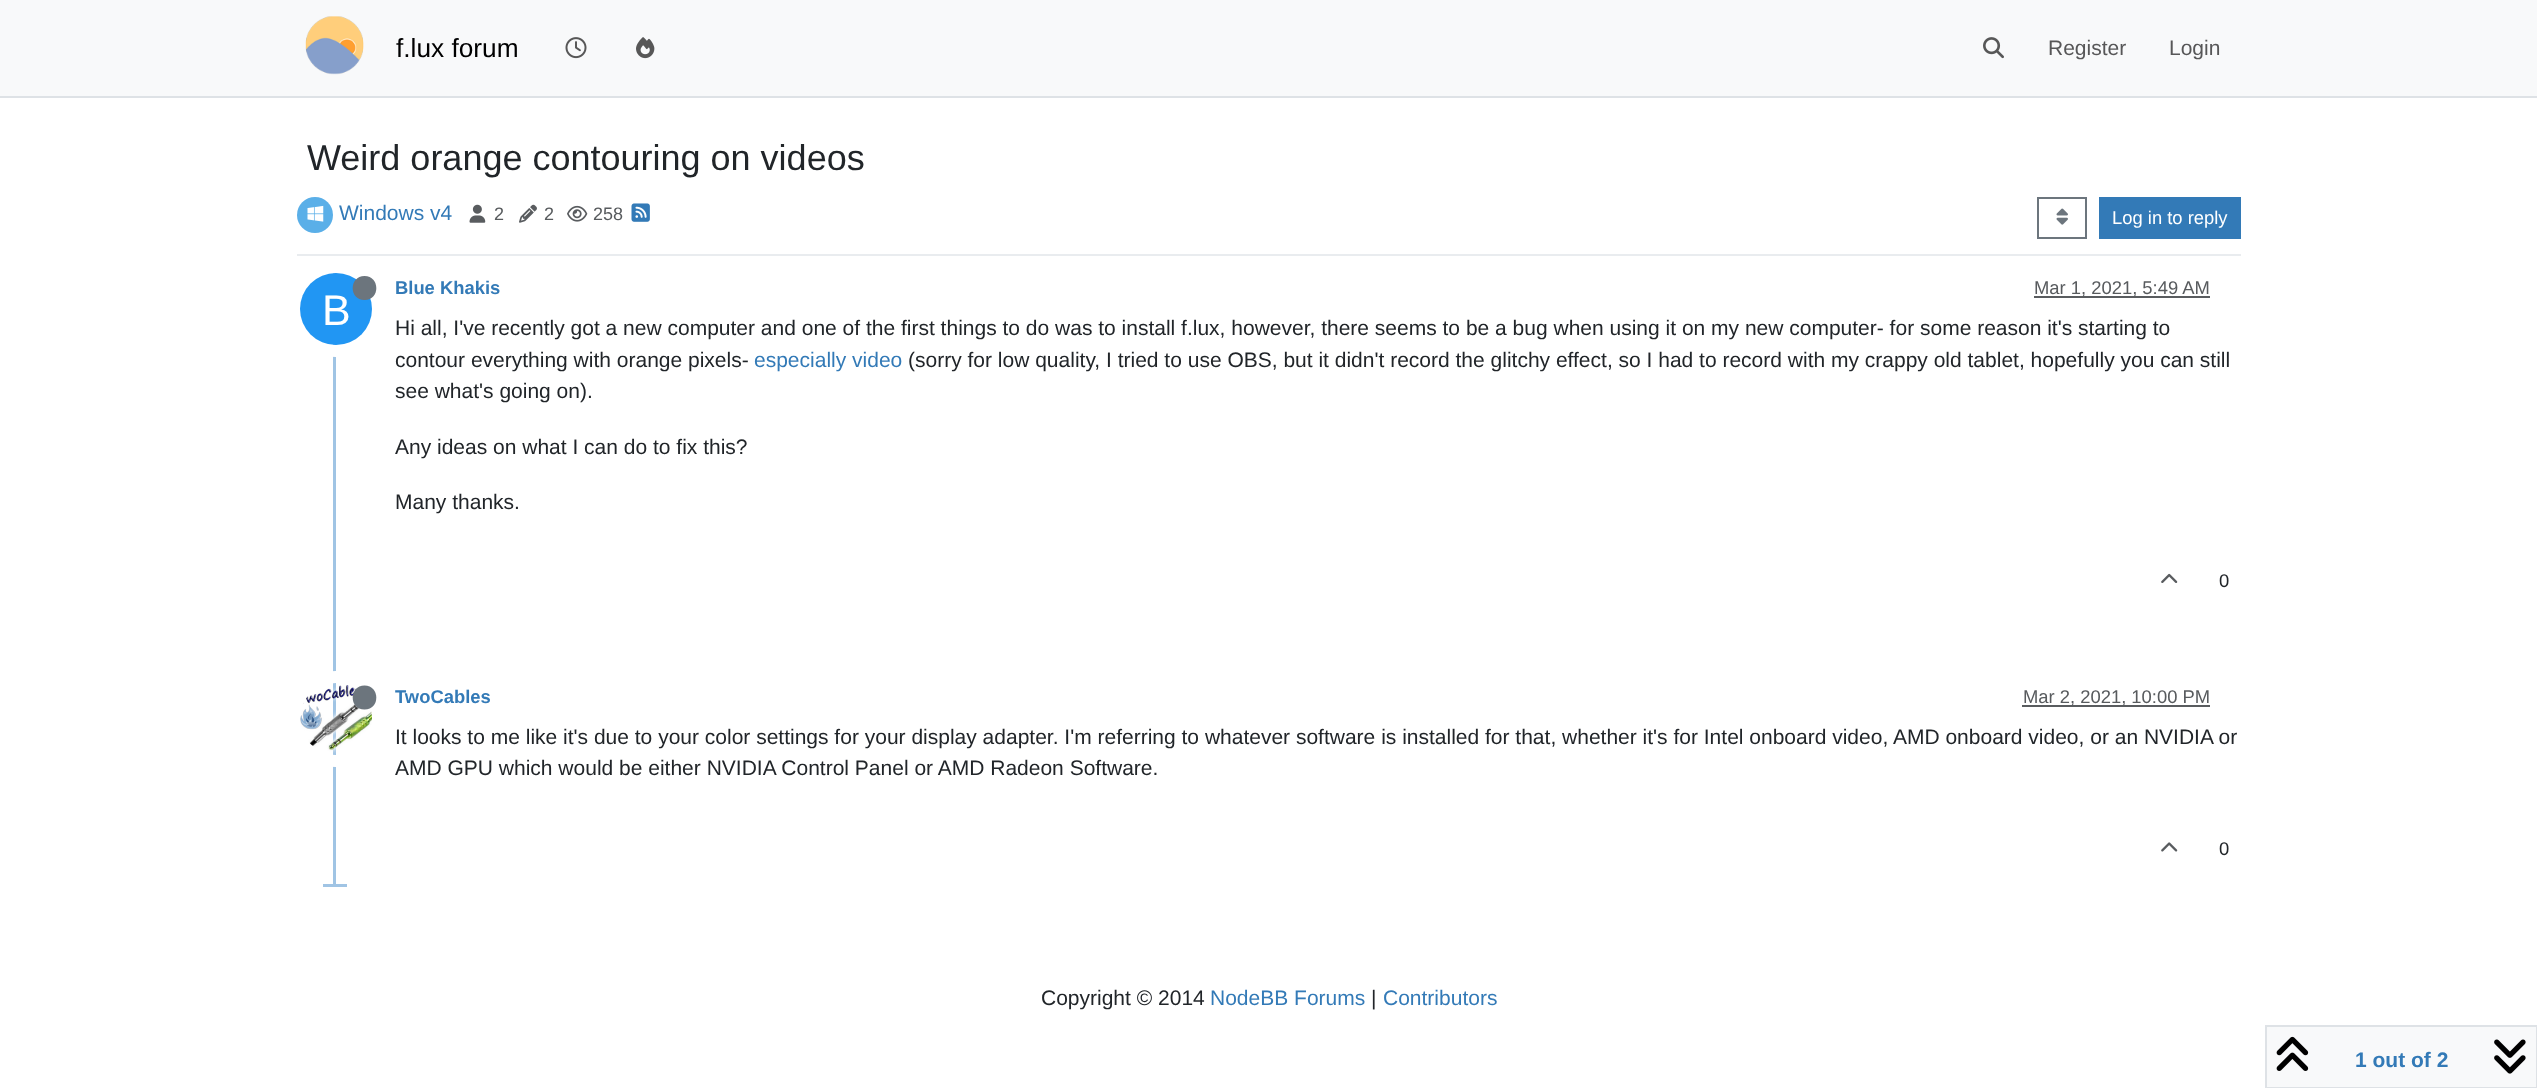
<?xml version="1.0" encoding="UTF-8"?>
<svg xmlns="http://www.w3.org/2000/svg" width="2537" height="1088">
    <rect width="100%" height="100%" fill="#FFFFFF"/>
    <rect x="0" y="0" width="2537" height="96" fill="#F8F9FA"/>
    <rect x="0" y="96" width="2537" height="2" fill="#DEE2E6"/>
    <image x="305" y="16" width="59" height="59" href="img_01.png"/>
    <text x="396" y="57" font-family="Liberation Sans" font-size="26.25" fill="#000000">f.lux forum</text>
    <image x="565" y="37" width="22" height="22" href="img_02.png"/>
    <image x="636" y="37" width="19" height="22" href="img_03.png"/>
    <image x="1983" y="37" width="21" height="22" href="img_04.png"/>
    <text x="2048" y="55" font-family="Liberation Sans" font-size="21" fill="#575758">Register</text>
    <text x="2169" y="55" font-family="Liberation Sans" font-size="21" fill="#575758">Login</text>
    <text x="307" y="170" font-family="Liberation Sans" font-size="36" fill="#212529">Weird orange contouring on videos</text>
    <rect x="297" y="254" width="1944" height="2" fill="#E9ECEF"/>
    <circle cx="315" cy="215" r="18" fill="#5AAFE8"/>
    <image x="307" y="205" width="17" height="17" href="img_05.png"/>
    <text x="339" y="220" font-family="Liberation Sans" font-size="21" fill="#337AB7">Windows v4</text>
    <image x="469" y="204" width="17" height="19" href="img_06.png"/>
    <text x="494" y="220" font-family="Liberation Sans" font-size="18" fill="#585B5E">2</text>
    <image x="519" y="204" width="18" height="19" href="img_07.png"/>
    <text x="544" y="220" font-family="Liberation Sans" font-size="18" fill="#585B5E">2</text>
    <image x="567" y="205" width="21" height="17" href="img_08.png"/>
    <text x="593" y="220" font-family="Liberation Sans" font-size="18" fill="#585B5E">258</text>
    <image x="631" y="203" width="19" height="19" href="img_09.png"/>
    <rect x="2038" y="198" width="48" height="40" fill="none" stroke="#6C757D" stroke-width="2"/>
    <image x="2056" y="208" width="12" height="17" href="img_10.png"/>
    <rect x="2099" y="197" width="142" height="42" fill="#337AB7"/>
    <text x="2112" y="224" font-family="Liberation Sans" font-size="18.4" fill="#FFFFFF">Log in to reply</text>
    <rect x="333" y="270" width="3" height="617" fill="#A0C4E4"/>
    <text x="395" y="294" font-family="Liberation Sans" font-size="18.4" font-weight="700" fill="#337AB7">Blue Khakis</text>
    <rect x="2034" y="296" width="176" height="2" fill="#595C5F"/>
    <text x="2034" y="294" font-family="Liberation Sans" font-size="18.4" fill="#585B5E">Mar 1, 2021, 5:49 AM</text>
    <circle cx="336" cy="309" r="42" fill="none" stroke="#FFFFFF" stroke-width="12"/>
    <circle cx="336" cy="309" r="36" fill="#2196F3"/>
    <path d="M 364.5 300 C 380.5 300 380 276 364.5 276 C 349 276 348.5 300 364.5 300 Z" fill="#6C757D"/>
    <text x="322" y="325" font-family="Liberation Sans" font-size="43" fill="#FFFFFF">B</text>
    <text font-family="Liberation Sans" font-size="21" fill="#212529">
        <tspan x="395" y="335">Hi all, I've recently got a new computer and one of the first things to do was to install f.lux, however, there seems to be a bug when using it on my new computer- for some reason it's starting to</tspan>
        <tspan x="395" y="367">contour everything with orange pixels-</tspan>
    </text>
    <text x="754" y="367" font-family="Liberation Sans" font-size="21" fill="#337AB7">especially video</text>
    <text x="908" y="367" font-family="Liberation Sans" font-size="21" fill="#212529">(sorry for low quality, I tried to use OBS, but it didn't record the glitchy effect, so I had to record with my crappy old tablet, hopefully you can still</text>
    <text x="395" y="398" font-family="Liberation Sans" font-size="21" fill="#212529">see what's going on).</text>
    <text x="395" y="454" font-family="Liberation Sans" font-size="21" fill="#212529">Any ideas on what I can do to fix this?</text>
    <text x="395" y="509" font-family="Liberation Sans" font-size="21" fill="#212529">Many thanks.</text>
    <image x="2161" y="573" width="17" height="10" href="img_11.png"/>
    <text x="2219" y="587" font-family="Liberation Sans" font-size="18.4" fill="#212529">0</text>
    <circle cx="336" cy="719" r="42" fill="none" stroke="#FFFFFF" stroke-width="12"/>
    <image x="300" y="685" width="72" height="69" href="img_12.png"/>
    <path d="M 364.5 709.5 C 380.5 709.5 380 685.5 364.5 685.5 C 349 685.5 348.5 709.5 364.5 709.5 Z" fill="#6C757D"/>
    <text x="395" y="703" font-family="Liberation Sans" font-size="18.4" font-weight="700" fill="#337AB7">TwoCables</text>
    <rect x="2022" y="705" width="188" height="2" fill="#595C5F"/>
    <text x="2023" y="703" font-family="Liberation Sans" font-size="18.4" fill="#585B5E">Mar 2, 2021, 10:00 PM</text>
    <text font-family="Liberation Sans" font-size="21" fill="#212529">
        <tspan x="395" y="744">It looks to me like it's due to your color settings for your display adapter. I'm referring to whatever software is installed for that, whether it's for Intel onboard video, AMD onboard video, or an NVIDIA or</tspan>
        <tspan x="395" y="775">AMD GPU which would be either NVIDIA Control Panel or AMD Radeon Software.</tspan>
    </text>
    <image x="2161" y="842" width="17" height="10" href="img_13.png"/>
    <text x="2219" y="855" font-family="Liberation Sans" font-size="18.4" fill="#212529">0</text>
    <rect x="323" y="884" width="24" height="3" fill="#A0C4E4"/>
    <rect x="2266" y="1026" width="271" height="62" fill="#F8F9FA" stroke="#DEE2E6" stroke-width="2"/>
    <image x="2276" y="1036" width="33" height="35" href="img_14.png"/>
    <text x="2355" y="1067" font-family="Liberation Sans" font-size="21" font-weight="700" fill="#337AB7">1 out of 2</text>
    <image x="2494" y="1039" width="32" height="35" href="img_15.png"/>
    <text x="1041" y="1005" font-family="Liberation Sans" font-size="21" fill="#212529">Copyright © 2014</text>
    <text x="1210" y="1005" font-family="Liberation Sans" font-size="21" fill="#337AB7">NodeBB Forums</text>
    <text x="1371" y="1005" font-family="Liberation Sans" font-size="21" fill="#212529">|</text>
    <text x="1383" y="1005" font-family="Liberation Sans" font-size="21" fill="#337AB7">Contributors</text>
</svg>
